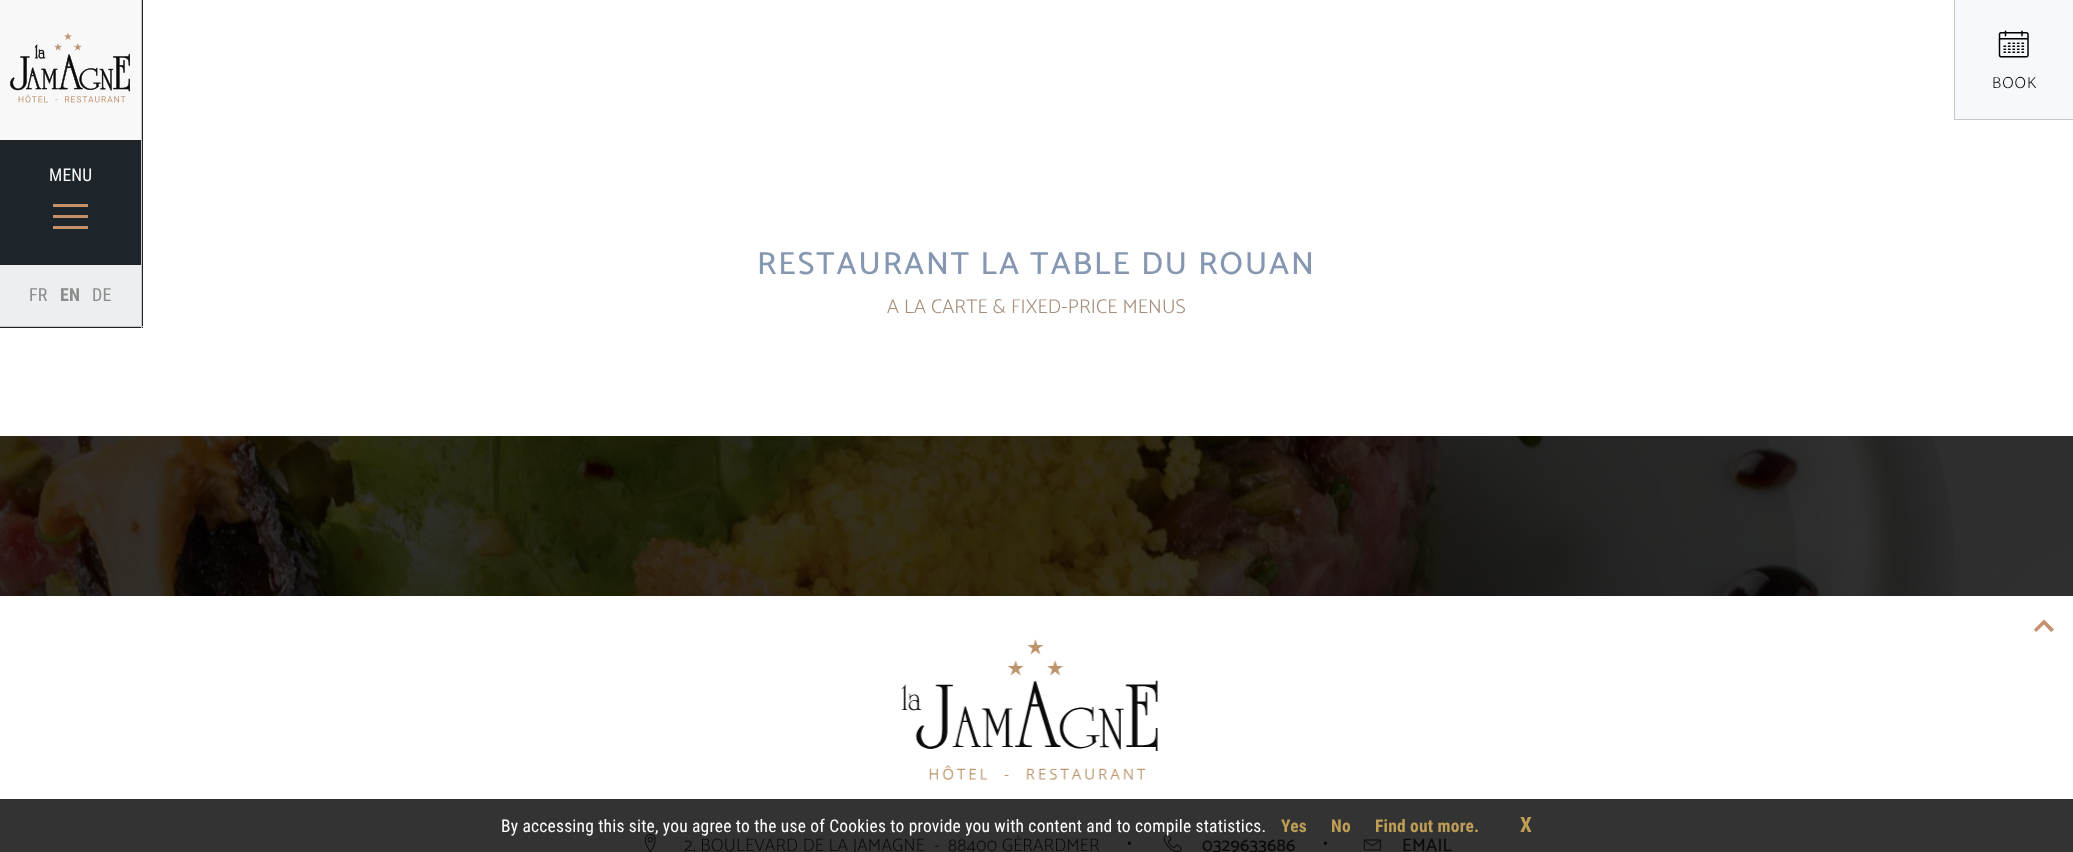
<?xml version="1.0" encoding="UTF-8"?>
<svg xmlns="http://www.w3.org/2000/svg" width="2073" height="852">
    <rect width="100%" height="100%" fill="#FFFFFF"/>
    <rect x="1955" y="0" width="118" height="119" fill="#F7F8FC"/>
    <rect x="1954" y="119" width="119" height="1" fill="#C7C7C7"/>
    <rect x="1954" y="0" width="1" height="120" fill="#C7C7C7"/>
    <image x="1998" y="30" width="31" height="28" href="img_01.png"/>
    <text x="1992" y="88" font-family="Catamaran" font-size="16" font-weight="200" letter-spacing="1" fill="#000000">BOOK</text>
    <rect x="0" y="0" width="143" height="328" fill="#1E252A"/>
    <rect x="141" y="0" width="1" height="328" fill="#C7C7C7"/>
    <rect x="0" y="326" width="143" height="1" fill="#C7C7C7"/>
    <rect x="0" y="0" width="141" height="140" fill="#F9F8F8"/>
    <image x="10" y="33" width="120" height="70" href="img_02.png"/>
    <text x="49" y="181" font-family="Roboto Condensed" font-size="17.5" letter-spacing="0.2" fill="#F8F8F8">MENU</text>
    <rect x="53" y="215" width="35" height="3" fill="#C49069"/>
    <rect x="53" y="204" width="35" height="3" fill="#C49069"/>
    <rect x="53" y="226" width="35" height="3" fill="#C49069"/>
    <rect x="0" y="265" width="141" height="61" fill="#ECEEF0"/>
    <text x="29" y="301" font-family="Roboto Condensed" font-size="18" letter-spacing="0.2" fill="#8A8D8B">FR</text>
    <text x="60" y="301" font-family="Roboto Condensed" font-size="18" font-weight="700" letter-spacing="0.2" fill="#8A8D8B">EN</text>
    <text x="92" y="301" font-family="Roboto Condensed" font-size="18" letter-spacing="0.2" fill="#8A8D8B">DE</text>
    <text x="757" y="274" font-family="Catamaran" font-size="32" font-weight="500" letter-spacing="2" fill="#8697B2">RESTAURANT LA TABLE DU ROUAN</text>
    <text x="887" y="313" font-family="Catamaran" font-size="20" font-weight="300" letter-spacing="0.2" fill="#A58F7C">A LA CARTE &amp; FIXED-PRICE MENUS</text>
    <image x="0" y="436" width="2073" height="160" href="img_03.png"/>
    <rect x="0" y="799" width="2073" height="53" fill="#333333"/>
    <image x="644" y="834" width="12" height="18" href="img_05.png"/>
    <image x="1163" y="834" width="19" height="18" href="img_06.png"/>
    <text x="501" y="832" font-family="Roboto Condensed" font-size="17.5" letter-spacing="0.2" fill="#FFFFFF">By accessing this site, you agree to the use of Cookies to provide you with content and to compile statistics.</text>
    <text x="1281" y="832" font-family="Roboto Condensed" font-size="17.5" font-weight="700" letter-spacing="0.2" fill="#BE9E56">Yes</text>
    <text x="1331" y="832" font-family="Roboto Condensed" font-size="17.5" font-weight="700" letter-spacing="0.2" fill="#BE9E56">No</text>
    <text x="1375" y="832" font-family="Roboto Condensed" font-size="17.5" font-weight="700" letter-spacing="0.2" fill="#BE9E56">Find out more.</text>
    <text x="1520" y="832" font-family="Roboto Condensed" font-size="21" font-weight="700" letter-spacing="0.2" fill="#BE9E56">X</text>
    <path d="M 2034 629.5 L 2036 632 L 2044 624.5 L 2051 632 L 2054 629.5 L 2044 619.5 Z" fill="#C49069"/>
    <image x="901" y="639" width="257" height="141" href="img_04.png"/>
    <text x="684" y="851" font-family="Catamaran" font-size="18" font-weight="200" letter-spacing="0.2" fill="#0A0908">2, BOULEVARD DE LA JAMAGNE</text>
    <text x="934" y="851" font-family="Catamaran" font-size="18" font-weight="200" letter-spacing="0.2" fill="#0A0908">-</text>
    <text x="948" y="851" font-family="Catamaran" font-size="18" font-weight="200" letter-spacing="0.2" fill="#0A0908">88400 GÉRARDMER</text>
    <text x="1127" y="851" font-family="Catamaran" font-size="24" font-weight="200" letter-spacing="0.2" fill="#0A0908">•</text>
    <text x="1202" y="851" font-family="Catamaran" font-size="18" font-weight="500" letter-spacing="0.2" fill="#0A0908">0329633686</text>
    <text x="1323" y="851" font-family="Catamaran" font-size="24" font-weight="200" letter-spacing="0.2" fill="#0A0908">•</text>
    <image x="1363" y="839" width="18" height="12" href="img_07.png"/>
    <text x="1402" y="851" font-family="Catamaran" font-size="18" font-weight="500" letter-spacing="0.2" fill="#0A0908">EMAIL</text>
</svg>
